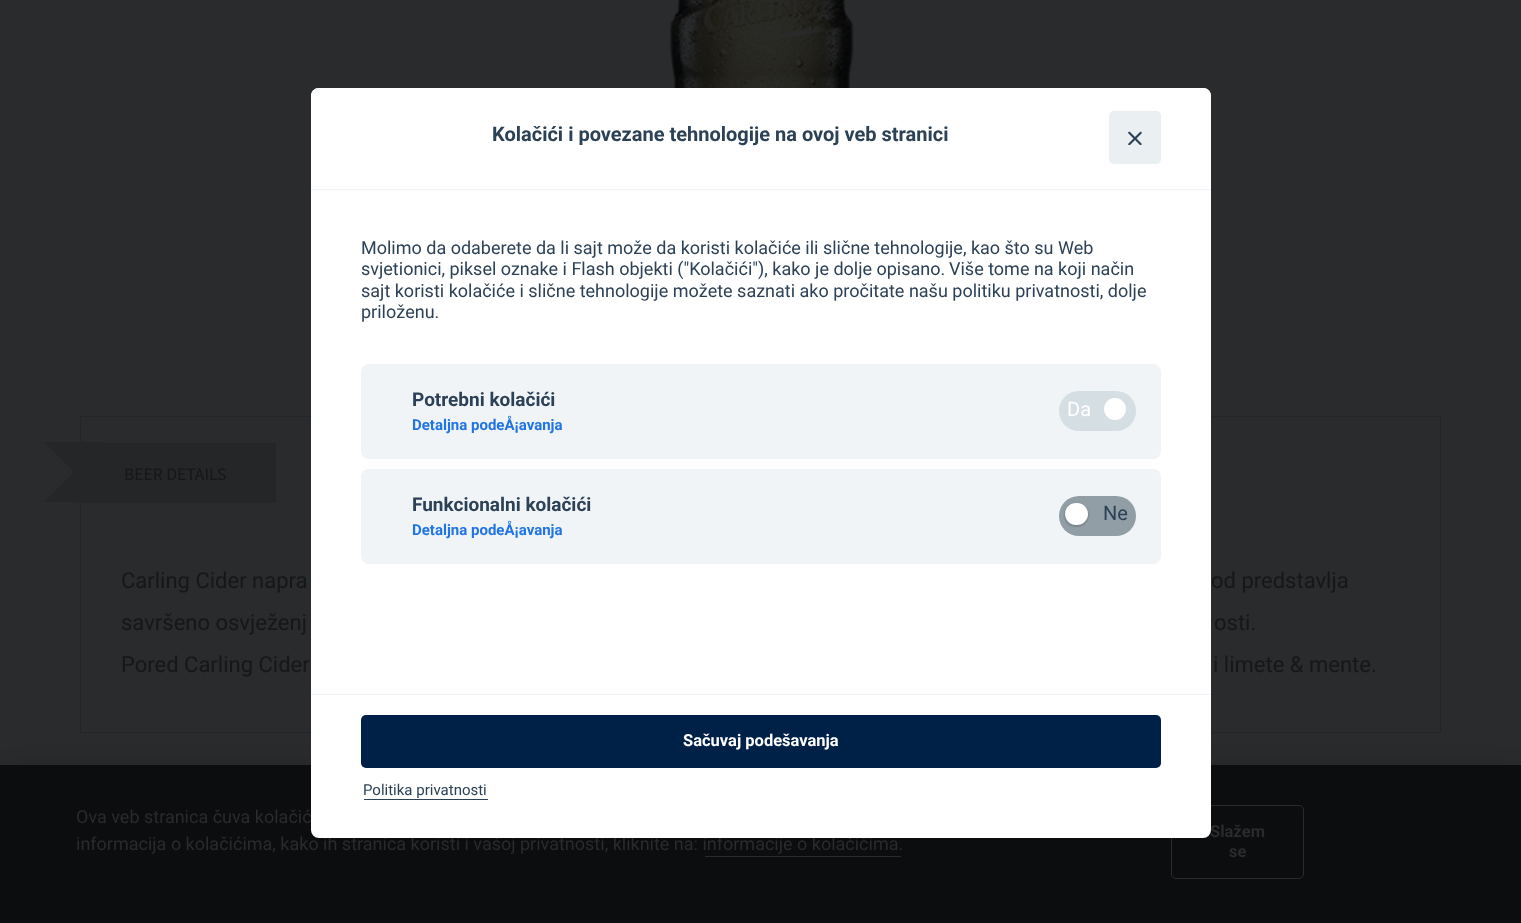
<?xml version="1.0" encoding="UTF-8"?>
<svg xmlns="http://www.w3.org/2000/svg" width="1521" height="923">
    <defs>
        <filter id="blur1" x="-50%" y="-200%" width="200%" height="500%"><feGaussianBlur stdDeviation="19"/></filter>
        <filter id="blur2" x="-50%" y="-200%" width="200%" height="500%"><feGaussianBlur stdDeviation="1"/></filter>
    </defs>
    <rect width="100%" height="100%" fill="#292B2C"/>
    <rect x="80.5" y="416.5" width="1360" height="316" fill="none" stroke="#232629"/>
    <rect x="0" y="778" width="1521" height="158" fill="#040507" fill-opacity="0.28" filter="url(#blur1)"/>
    <rect x="0" y="765" width="1521" height="158" fill="#0B0D0E"/>
    <text x="76" y="850" font-family="Roboto" font-size="18" fill="#2A2B2D">informacija o kolačićima, kako ih stranica koristi i vašoj privatnosti, kliknite na: informacije o kolačićima.</text>
    <rect x="1171.5" y="805.5" width="132" height="73" rx="4.5" fill="none" stroke="#2A2B2D"/>
    <rect x="311" y="88" width="900" height="750" rx="8" fill="#FFFFFF"/>
    <path d="M 319 88 H 1203 C 1207.5 88 1211 91.5 1211 96 V 190 H 311 V 96 C 311 91.5 314.5 88 319 88 Z" fill="#FFFFFF"/>
    <rect x="311" y="189" width="900" height="1" fill="#F1F3F5"/>
    <text x="492" y="141" font-family="Roboto" font-size="20" font-weight="700" fill="#2D4156">Kolačići i povezane tehnologije na ovoj veb stranici</text>
    <rect x="1109" y="111" width="52" height="53" rx="5" fill="#EAEFF2"/>
    <path d="M 1141.5 132 C 1141.5 132.5 1141.5 133 1141.5 133.5 L 1130 145 C 1129.5 145 1129 145 1128.5 145 C 1128 144.5 1128 144 1128.5 143.5 L 1140 132 C 1140.5 131.5 1141 131.5 1141.5 132 Z" fill="#2D4156"/>
    <path d="M 1128.5 132 C 1129 131.5 1129.5 131.5 1130 132 L 1141.5 143.5 C 1141.5 144 1141.5 144.5 1141.5 145 C 1141 145 1140.5 145 1140 145 L 1128.5 133.5 C 1128 133 1128 132.5 1128.5 132 Z" fill="#2D4156"/>
    <text font-family="Roboto" font-size="18" fill="#2D4156">
        <tspan x="361" y="254">Molimo da odaberete da li sajt može da koristi kolačiće ili slične tehnologije, kao što su Web</tspan>
        <tspan x="361" y="275">svjetionici, piksel oznake i Flash objekti ("Kolačići"), kako je dolje opisano.</tspan>
    </text>
    <text x="949" y="275" font-family="Roboto" font-size="18" fill="#2D4156">Više tome na koji način</text>
    <text font-family="Roboto" font-size="18" fill="#2D4156">
        <tspan x="361" y="297">sajt koristi kolačiće i slične tehnologije možete saznati ako pročitate našu politiku privatnosti, dolje</tspan>
        <tspan x="361" y="318">priloženu.</tspan>
    </text>
    <rect x="361" y="364" width="800" height="95" rx="8" fill="#F0F4F7"/>
    <text x="412" y="406" font-family="Roboto" font-size="19" font-weight="700" fill="#2D4156">Potrebni kolačići</text>
    <text x="412" y="430" font-family="Roboto" font-size="15" font-weight="700" fill="#2074E5">Detaljna podeÅ¡avanja</text>
    <rect x="1059" y="391" width="77" height="40" rx="20" fill="#D5DEE2"/>
    <text x="1067" y="416" font-family="Roboto" font-size="20" fill="#FFFFFF">Da</text>
    <circle cx="1115" cy="409" r="11" fill="#FFFFFF"/>
    <rect x="361" y="469" width="800" height="95" rx="8" fill="#F0F4F7"/>
    <text x="412" y="511" font-family="Roboto" font-size="19" font-weight="700" fill="#2D4156">Funkcionalni kolačići</text>
    <text x="412" y="535" font-family="Roboto" font-size="15" font-weight="700" fill="#2074E5">Detaljna podeÅ¡avanja</text>
    <rect x="1059" y="496" width="77" height="40" rx="20" fill="#919EA6"/>
    <rect x="1065" y="504" width="23" height="22" rx="11" fill="#182023" fill-opacity="0.36" filter="url(#blur2)"/>
    <rect x="1065" y="503" width="23" height="22" rx="11" fill="#FFFFFF"/>
    <text x="1103" y="520" font-family="Roboto" font-size="20" fill="#2D4156">Ne</text>
    <rect x="311" y="694" width="900" height="1" fill="#F1F3F5"/>
    <rect x="361" y="715" width="800" height="53" rx="5" fill="#002147"/>
    <text x="683" y="746" font-family="Roboto" font-size="16.5" font-weight="700" fill="#FFFFFF">Sačuvaj podešavanja</text>
    <text x="363" y="795" font-family="Roboto" font-size="15" fill="#2D4156">Politika privatnosti</text>
    <rect x="364" y="799" width="124" height="1" fill="#2D4156"/>
    <text x="76" y="823" font-family="Roboto" font-size="18" fill="#2A2B2D">Ova veb stranica čuva kolačić</text>
    <rect x="705" y="856" width="196" height="1" fill="#2A2B2D"/>
    <text x="1210" y="837" font-family="Roboto" font-size="16.5" font-weight="700" fill="#2A2B2D">Slažem</text>
    <text x="1229" y="857" font-family="Roboto" font-size="16.5" font-weight="700" fill="#2A2B2D">se</text>
    <image x="669" y="0" width="185" height="88" href="img_01.png"/>
    <rect x="74" y="443" width="202" height="60" fill="#242628"/>
    <path d="M 44 442 H 104 L 74 472 Z M 104 502 H 44 L 74 472 Z" fill="#242628"/>
    <text x="124" y="480" font-family="Source Sans Pro" font-size="17.5" fill="#151719">BEER DETAILS</text>
    <text x="121" y="588" font-family="Roboto" font-size="22" fill="#151719">Carling Cider napra</text>
    <text x="1211" y="588" font-family="Roboto" font-size="22" fill="#151719">od predstavlja</text>
    <text x="121" y="630" font-family="Roboto" font-size="22" fill="#151719">savršeno osvježenj</text>
    <text x="1214" y="630" font-family="Roboto" font-size="22" fill="#151719">osti.</text>
    <text x="121" y="672" font-family="Roboto" font-size="22" fill="#151719">Pored Carling Cider</text>
    <text x="1213" y="672" font-family="Roboto" font-size="22" fill="#151719">i limete &amp; mente.</text>
</svg>
